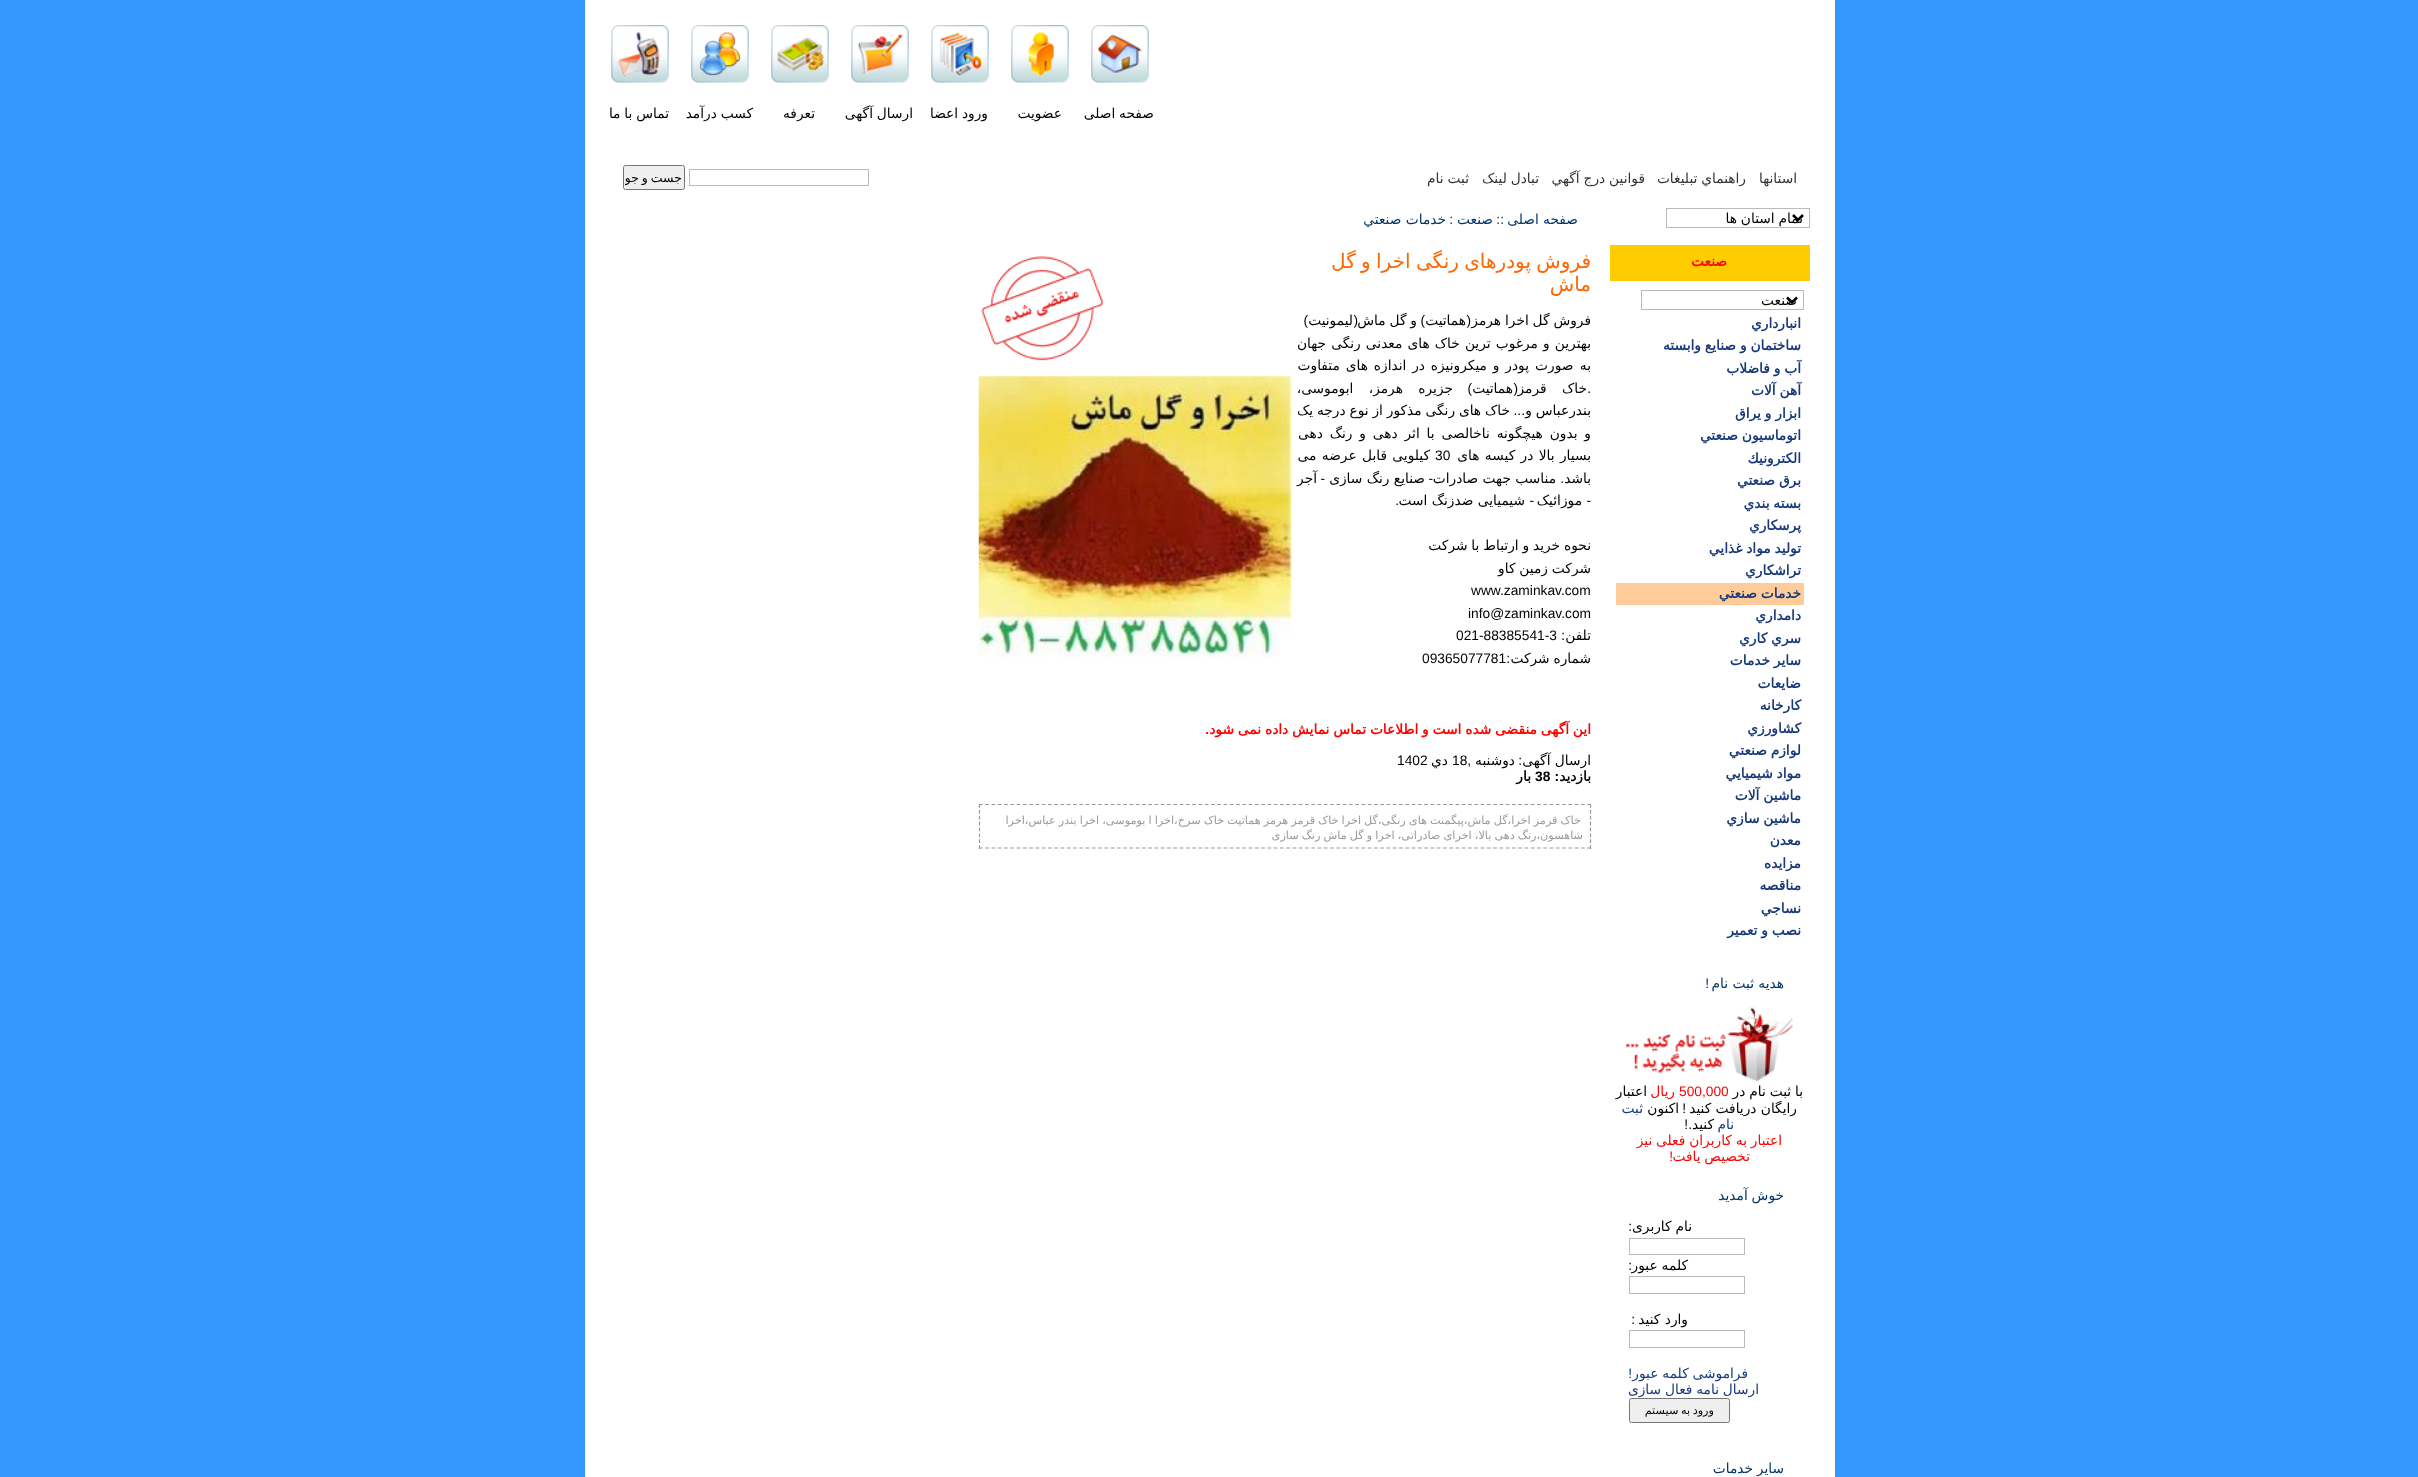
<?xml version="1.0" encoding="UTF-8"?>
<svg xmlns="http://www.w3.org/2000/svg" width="2418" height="1477">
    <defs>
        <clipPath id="clip1"><rect x="625" y="168" width="58" height="20"/></clipPath>
    </defs>
    <rect width="100%" height="100%" fill="#3399FF"/>
    <rect x="585" y="0" width="1250" height="1477" fill="#FFFFFF"/>
    <image x="1091" y="25" width="58" height="58" href="img_01.png"/>
    <text x="1154" y="118" word-spacing="-0.5" font-family="DejaVu Sans" font-size="13.75" direction="rtl" fill="#000000">صفحه اصلی</text>
    <image x="1011" y="25" width="58" height="58" href="img_02.png"/>
    <text x="1062" y="118" font-family="DejaVu Sans" font-size="13.75" direction="rtl" fill="#000000">عضویت</text>
    <image x="931" y="25" width="58" height="58" href="img_03.png"/>
    <text x="988" y="118" word-spacing="-0.5" font-family="DejaVu Sans" font-size="13.75" direction="rtl" fill="#000000">ورود اعضا</text>
    <image x="851" y="25" width="58" height="58" href="img_04.png"/>
    <text x="913" y="118" word-spacing="-0.5" font-family="DejaVu Sans" font-size="13.75" direction="rtl" fill="#000000">ارسال آگهی</text>
    <image x="771" y="25" width="58" height="58" href="img_05.png"/>
    <text x="815" y="118" font-family="DejaVu Sans" font-size="13.75" direction="rtl" fill="#000000">تعرفه</text>
    <image x="691" y="25" width="58" height="58" href="img_06.png"/>
    <text x="753" y="118" word-spacing="-0.5" font-family="DejaVu Sans" font-size="13.75" direction="rtl" fill="#000000">کسب درآمد</text>
    <image x="611" y="25" width="58" height="58" href="img_07.png"/>
    <text x="669" y="118" word-spacing="-0.5" font-family="DejaVu Sans" font-size="13.75" direction="rtl" fill="#000000">تماس با ما</text>
    <text x="1797" y="183" font-family="DejaVu Sans" font-size="13.75" direction="rtl" fill="#333333">استانها</text>
    <text x="1746" y="183" word-spacing="-0.5" font-family="DejaVu Sans" font-size="13.75" direction="rtl" fill="#333333">راهنماي تبليغات</text>
    <text x="1645" y="183" word-spacing="-0.5" font-family="DejaVu Sans" font-size="13.75" direction="rtl" fill="#333333">قوانين درج آگهي</text>
    <text x="1539" y="183" word-spacing="-0.5" font-family="DejaVu Sans" font-size="13.75" direction="rtl" fill="#333333">تبادل لینک</text>
    <text x="1469" y="183" word-spacing="-0.5" font-family="DejaVu Sans" font-size="13.75" direction="rtl" fill="#333333">ثبت نام</text>
    <rect x="689.5" y="169.5" width="179" height="16" fill="none" stroke="#BABABA"/>
    <rect x="623.5" y="165.5" width="61" height="24" rx="2" fill="#EFEFEF" stroke="#767676"/>
    <g clip-path="url(#clip1)">
        <text x="682" y="182" word-spacing="-1" font-family="DejaVu Sans" font-size="12.5" direction="rtl" fill="#000000">جست و جو</text>
    </g>
    <rect x="1666.5" y="208.5" width="143" height="19" fill="none" stroke="#BABABA"/>
    <path d="M 1793 215 L 1798 220 L 1803 215" fill="none" stroke="#000000" stroke-width="2.5"/>
    <text x="1803" y="223" word-spacing="-0.5" font-family="DejaVu Sans" font-size="13.75" direction="rtl" fill="#000000">تمام استان ها</text>
    <rect x="1610" y="245" width="200" height="36" fill="#FFCC00"/>
    <text x="1727" y="266" font-family="DejaVu Sans" font-size="13.75" font-weight="700" direction="rtl" fill="#FF0000">صنعت</text>
    <rect x="1641.5" y="290.5" width="162" height="19" fill="none" stroke="#BABABA"/>
    <path d="M 1787 297.5 L 1792 302.5 L 1797 297.5" fill="none" stroke="#000000" stroke-width="2.5"/>
    <text x="1797" y="305" font-family="DejaVu Sans" font-size="13.75" direction="rtl" fill="#000000">صنعت</text>
    <text font-family="DejaVu Sans" font-size="13.75" font-weight="700" direction="rtl" fill="#17387B">
        <tspan x="1801" y="328">انبارداري</tspan>
        <tspan x="1801" y="350" word-spacing="-0.5">ساختمان و صنایع وابسته</tspan>
        <tspan x="1801" y="373" word-spacing="-0.5">آب و فاضلاب</tspan>
        <tspan x="1801" y="395" word-spacing="-0.5">آهن آلات</tspan>
        <tspan x="1801" y="418" word-spacing="-0.5">ابزار و يراق</tspan>
        <tspan x="1801" y="440" word-spacing="-0.5">اتوماسيون صنعتي</tspan>
        <tspan x="1801" y="463">الكترونيك</tspan>
        <tspan x="1801" y="485" word-spacing="-0.5">برق صنعتي</tspan>
        <tspan x="1801" y="508" word-spacing="-0.5">بسته بندي</tspan>
        <tspan x="1801" y="530">پرسكاري</tspan>
        <tspan x="1801" y="553" word-spacing="-0.5">توليد مواد غذايي</tspan>
        <tspan x="1801" y="575">تراشكاري</tspan>
    </text>
    <rect x="1616" y="583" width="188" height="22" fill="#FFCC99"/>
    <text font-family="DejaVu Sans" font-size="13.75" font-weight="700" direction="rtl" fill="#17387B">
        <tspan x="1801" y="598" word-spacing="-0.5">خدمات صنعتي</tspan>
        <tspan x="1801" y="620">دامداري</tspan>
        <tspan x="1801" y="643" word-spacing="-0.5">سري كاري</tspan>
        <tspan x="1801" y="665" word-spacing="-0.5">ساير خدمات</tspan>
        <tspan x="1801" y="688">ضايعات</tspan>
        <tspan x="1801" y="710">كارخانه</tspan>
        <tspan x="1801" y="733">كشاورزي</tspan>
        <tspan x="1801" y="755" word-spacing="-0.5">لوازم صنعتي</tspan>
        <tspan x="1801" y="778" word-spacing="-0.5">مواد شيميايي</tspan>
        <tspan x="1801" y="800" word-spacing="-0.5">ماشين آلات</tspan>
        <tspan x="1801" y="823" word-spacing="-0.5">ماشين سازي</tspan>
        <tspan x="1801" y="845">معدن</tspan>
        <tspan x="1801" y="868">مزايده</tspan>
        <tspan x="1801" y="890">مناقصه</tspan>
        <tspan x="1801" y="913">نساجي</tspan>
        <tspan x="1801" y="935" word-spacing="-0.5">نصب و تعمير</tspan>
    </text>
    <text x="1784" y="988" font-family="DejaVu Sans" font-size="13.75" direction="rtl" fill="#003366">هدیه ثبت نام</text>
    <text x="1709" y="988" font-family="Liberation Sans" font-size="13.75" direction="rtl" fill="#003366">!</text>
    <image x="1626" y="1006" width="167" height="76" href="img_08.png"/>
    <text x="1803" y="1096" word-spacing="-0.5" font-family="DejaVu Sans" font-size="13.75" direction="rtl" fill="#000000">با ثبت نام در</text>
    <text x="1679" y="1096" font-family="Liberation Sans" font-size="13.75" fill="#FF0000">500,000</text>
    <text x="1675" y="1096" font-family="DejaVu Sans" font-size="13.75" direction="rtl" fill="#FF0000">ریال</text>
    <text x="1647" y="1096" font-family="DejaVu Sans" font-size="13.75" direction="rtl" fill="#000000">اعتبار</text>
    <text x="1797" y="1113" font-family="DejaVu Sans" font-size="13.75" direction="rtl" fill="#000000">رایگان دریافت کنید</text>
    <text x="1686" y="1113" font-family="Liberation Sans" font-size="13.75" direction="rtl" fill="#000000">!</text>
    <text x="1679" y="1113" font-family="DejaVu Sans" font-size="13.75" direction="rtl" fill="#000000">اکنون</text>
    <text x="1643" y="1113" font-family="DejaVu Sans" font-size="13.75" direction="rtl" fill="#17387B">ثبت</text>
    <text x="1734" y="1129" font-family="DejaVu Sans" font-size="13.75" direction="rtl" fill="#17387B">نام</text>
    <text x="1714" y="1129" font-family="DejaVu Sans" font-size="13.75" direction="rtl" fill="#000000">کنید</text>
    <text x="1692" y="1129" font-family="Liberation Sans" font-size="13.75" direction="rtl" fill="#000000">.!</text>
    <text x="1782" y="1145" word-spacing="-0.5" font-family="DejaVu Sans" font-size="13.75" direction="rtl" fill="#FF0000">اعتبار به کاربران فعلی نیز</text>
    <text x="1750" y="1161" word-spacing="-0.5" font-family="DejaVu Sans" font-size="13.75" direction="rtl" fill="#FF0000">تخصیص یافت</text>
    <text x="1673" y="1161" font-family="Liberation Sans" font-size="13.75" direction="rtl" fill="#FF0000">!</text>
    <text x="1784" y="1200" word-spacing="-0.5" font-family="DejaVu Sans" font-size="13.75" direction="rtl" fill="#003366">خوش آمدید</text>
    <text x="1692" y="1231" word-spacing="-0.5" font-family="DejaVu Sans" font-size="13.75" direction="rtl" fill="#000000">نام کاربری</text>
    <text x="1632" y="1231" font-family="Liberation Sans" font-size="13.75" direction="rtl" fill="#000000">:</text>
    <rect x="1629.5" y="1238.5" width="115" height="16" fill="none" stroke="#BABABA"/>
    <text x="1688" y="1270" word-spacing="-0.5" font-family="DejaVu Sans" font-size="13.75" direction="rtl" fill="#000000">کلمه عبور</text>
    <text x="1632" y="1270" font-family="Liberation Sans" font-size="13.75" direction="rtl" fill="#000000">:</text>
    <rect x="1629.5" y="1276.5" width="115" height="17" fill="none" stroke="#BABABA"/>
    <text x="1688" y="1324" font-family="DejaVu Sans" font-size="13.75" direction="rtl" fill="#000000">وارد کنید</text>
    <text x="1635" y="1324" font-family="Liberation Sans" font-size="13.75" direction="rtl" fill="#000000">:</text>
    <rect x="1629.5" y="1330.5" width="115" height="17" fill="none" stroke="#BABABA"/>
    <text x="1748" y="1378" word-spacing="-0.5" font-family="DejaVu Sans" font-size="13.75" direction="rtl" fill="#17387B">فراموشی کلمه عبور</text>
    <text x="1632" y="1378" font-family="Liberation Sans" font-size="13.75" direction="rtl" fill="#17387B">!</text>
    <text x="1759" y="1394" word-spacing="-0.5" font-family="DejaVu Sans" font-size="13.75" direction="rtl" fill="#17387B">ارسال نامه فعال سازی</text>
    <rect x="1629.5" y="1398.5" width="100" height="24" rx="2" fill="#EFEFEF" stroke="#767676"/>
    <text x="1714" y="1414" word-spacing="-1" font-family="DejaVu Sans" font-size="11.25" direction="rtl" fill="#000000">ورود به سیستم</text>
    <text x="1784" y="1473" word-spacing="-0.5" font-family="DejaVu Sans" font-size="13.75" direction="rtl" fill="#003366">سایر خدمات</text>
    <text x="1578" y="224" font-family="DejaVu Sans" font-size="13.75" direction="rtl" fill="#003366">صفحه اصلی</text>
    <text x="1504" y="224" font-family="Liberation Sans" font-size="13.75" direction="rtl" fill="#003366">::</text>
    <text x="1493" y="224" font-family="DejaVu Sans" font-size="13.75" direction="rtl" fill="#003366">صنعت</text>
    <text x="1453" y="224" font-family="Liberation Sans" font-size="13.75" direction="rtl" fill="#003366">:</text>
    <text x="1446" y="224" font-family="DejaVu Sans" font-size="13.75" direction="rtl" fill="#003366">خدمات صنعتي</text>
    <text font-family="DejaVu Sans" font-size="20" direction="rtl" fill="#FF6600">
        <tspan x="1591" y="268" word-spacing="-1">فروش پودرهای رنگی اخرا و گل</tspan>
        <tspan x="1591" y="291">ماش</tspan>
    </text>
    <image x="981" y="256" width="123" height="105" href="img_09.png"/>
    <image x="978" y="376" width="314" height="282" href="img_10.png"/>
    <text x="1471" y="325" font-family="Liberation Sans" font-size="13.75" direction="rtl" fill="#000000">(</text>
    <text x="1591" y="325" word-spacing="-0.5" font-family="DejaVu Sans" font-size="13.75" direction="rtl" fill="#000000">فروش گل اخرا هرمز</text>
    <text x="1466" y="325" font-family="DejaVu Sans" font-size="13.75" direction="rtl" fill="#000000">هماتیت</text>
    <text x="1425" y="325" font-family="Liberation Sans" font-size="13.75" direction="rtl" fill="#000000">)</text>
    <text x="1417" y="325" word-spacing="-0.5" font-family="DejaVu Sans" font-size="13.75" direction="rtl" fill="#000000">و گل ماش</text>
    <text x="1358" y="325" font-family="Liberation Sans" font-size="13.75" direction="rtl" fill="#000000">(</text>
    <text x="1353" y="325" font-family="DejaVu Sans" font-size="13.75" direction="rtl" fill="#000000">لیمونیت</text>
    <text x="1308" y="325" font-family="Liberation Sans" font-size="13.75" direction="rtl" fill="#000000">)</text>
    <text font-family="DejaVu Sans" font-size="13.75" direction="rtl" fill="#000000">
        <tspan x="1591" y="348" word-spacing="0.75">بهترین و مرغوب ترین خاک های معدنی رنگی جهان</tspan>
        <tspan x="1591" y="370" word-spacing="2">به صورت</tspan>
    </text>
    <text x="1529" y="370" word-spacing="1.5" font-family="DejaVu Sans" font-size="13.75" direction="rtl" fill="#000000">پودر و میکرونیزه در اندازه های متفاوت</text>
    <text x="1591" y="393" font-family="Liberation Sans" font-size="13.75" direction="rtl" fill="#000000">.</text>
    <text x="1518" y="393" font-family="Liberation Sans" font-size="13.75" direction="rtl" fill="#000000">(</text>
    <text x="1587" y="393" word-spacing="11" font-family="DejaVu Sans" font-size="13.75" direction="rtl" fill="#000000">خاک قرمز</text>
    <text x="1513" y="393" font-family="DejaVu Sans" font-size="13.75" direction="rtl" fill="#000000">هماتیت</text>
    <text x="1472" y="393" font-family="Liberation Sans" font-size="13.75" direction="rtl" fill="#000000">)</text>
    <text x="1453" y="393" word-spacing="11" font-family="DejaVu Sans" font-size="13.75" direction="rtl" fill="#000000">جزیره هرمز، ابوموسی،</text>
    <text x="1591" y="415" word-spacing="-0.5" font-family="DejaVu Sans" font-size="13.75" direction="rtl" fill="#000000">بندرعباس و</text>
    <text x="1525" y="415" font-family="Liberation Sans" font-size="13.75" direction="rtl" fill="#000000">...</text>
    <text x="1510" y="415" word-spacing="-0.5" font-family="DejaVu Sans" font-size="13.75" direction="rtl" fill="#000000">خاک های رنگی مذکور از نوع درجه یک</text>
    <text font-family="DejaVu Sans" font-size="13.75" direction="rtl" fill="#000000">
        <tspan x="1591" y="438" word-spacing="2.5">و بدون هیچگونه ناخالصی با اثر دهی و رنگ دهی</tspan>
        <tspan x="1591" y="460" word-spacing="1">بسیار بالا در کیسه های</tspan>
    </text>
    <text x="1435" y="460" font-family="Liberation Sans" font-size="13.75" fill="#000000">30</text>
    <text x="1430" y="460" word-spacing="1" font-family="DejaVu Sans" font-size="13.75" direction="rtl" fill="#000000">کیلویی قابل عرضه می</text>
    <text x="1591" y="483" font-family="DejaVu Sans" font-size="13.75" direction="rtl" fill="#000000">باشد</text>
    <text x="1556" y="483" font-family="DejaVu Sans" font-size="13.75" direction="rtl" fill="#000000">مناسب جهت صادرات</text>
    <text x="1433" y="483" font-family="Liberation Sans" font-size="13.75" direction="rtl" fill="#000000">-</text>
    <text x="1425" y="483" font-family="DejaVu Sans" font-size="13.75" direction="rtl" fill="#000000">صنایع رنگ سازی</text>
    <text x="1325" y="483" font-family="Liberation Sans" font-size="13.75" direction="rtl" fill="#000000">-</text>
    <text x="1317" y="483" font-family="DejaVu Sans" font-size="13.75" direction="rtl" fill="#000000">آجر</text>
    <text x="1564" y="483" font-family="Liberation Sans" font-size="13.75" direction="rtl" fill="#000000">.</text>
    <text x="1591" y="505" font-family="Liberation Sans" font-size="13.75" direction="rtl" fill="#000000">-</text>
    <text x="1582" y="505" font-family="DejaVu Sans" font-size="13.75" direction="rtl" fill="#000000">موزائیک</text>
    <text x="1534" y="505" font-family="Liberation Sans" font-size="13.75" direction="rtl" fill="#000000">-</text>
    <text x="1525" y="505" font-family="DejaVu Sans" font-size="13.75" direction="rtl" fill="#000000">شیمیایی ضدزنگ است</text>
    <text x="1399" y="505" font-family="Liberation Sans" font-size="13.75" direction="rtl" fill="#000000">.</text>
    <text font-family="DejaVu Sans" font-size="13.75" direction="rtl" fill="#000000">
        <tspan x="1591" y="550" word-spacing="-0.5">نحوه خرید و ارتباط با شرکت</tspan>
        <tspan x="1591" y="573" word-spacing="-0.5">شرکت زمین کاو</tspan>
    </text>
    <text x="1471" y="595" font-family="Liberation Sans" font-size="13.75" fill="#000000">www.zaminkav.com</text>
    <text x="1468" y="618" font-family="Liberation Sans" font-size="13.75" fill="#000000">info@zaminkav.com</text>
    <text x="1591" y="640" font-family="DejaVu Sans" font-size="13.75" direction="rtl" fill="#000000">تلفن</text>
    <text x="1565" y="640" font-family="Liberation Sans" font-size="13.75" direction="rtl" fill="#000000">:</text>
    <text x="1456" y="640" font-family="Liberation Sans" font-size="13.75" fill="#000000">021-88385541-3</text>
    <text x="1591" y="663" word-spacing="-0.5" font-family="DejaVu Sans" font-size="13.75" direction="rtl" fill="#000000">شماره شرکت</text>
    <text x="1510" y="663" font-family="Liberation Sans" font-size="13.75" direction="rtl" fill="#000000">:</text>
    <text x="1422" y="663" font-family="Liberation Sans" font-size="13.75" fill="#000000">09365077781</text>
    <text x="1591" y="734" word-spacing="-0.5" font-family="DejaVu Sans" font-size="13.75" font-weight="700" direction="rtl" fill="#FF0000">این آگهی منقضی شده است و اطلاعات تماس نمایش داده نمی شود</text>
    <text x="1209" y="734" font-family="Liberation Sans" font-size="13.75" font-weight="700" direction="rtl" fill="#FF0000">.</text>
    <text x="1591" y="765" font-family="DejaVu Sans" font-size="13.75" direction="rtl" fill="#000000">ارسال آگهی</text>
    <text x="1522" y="765" font-family="Liberation Sans" font-size="13.75" direction="rtl" fill="#000000">:</text>
    <text x="1515" y="765" font-family="DejaVu Sans" font-size="13.75" direction="rtl" fill="#000000">دوشنبه</text>
    <text x="1471" y="765" font-family="Liberation Sans" font-size="13.75" direction="rtl" fill="#000000">,</text>
    <text x="1452" y="765" font-family="Liberation Sans" font-size="13.75" fill="#000000">18</text>
    <text x="1448" y="765" font-family="DejaVu Sans" font-size="13.75" direction="rtl" fill="#000000">دي</text>
    <text x="1397" y="765" font-family="Liberation Sans" font-size="13.75" fill="#000000">1402</text>
    <text x="1591" y="781" font-family="DejaVu Sans" font-size="13.75" font-weight="700" direction="rtl" fill="#000000">بازدید</text>
    <text x="1559" y="781" font-family="Liberation Sans" font-size="13.75" font-weight="700" direction="rtl" fill="#000000">:</text>
    <text x="1535" y="781" font-family="Liberation Sans" font-size="13.75" font-weight="700" fill="#000000">38</text>
    <text x="1531" y="781" font-family="DejaVu Sans" font-size="13.75" font-weight="700" direction="rtl" fill="#000000">بار</text>
    <path d="M 979 804.5 H 1591" fill="none" stroke="#999999" stroke-width="1.2" stroke-dasharray="3.75 2.52"/>
    <path d="M 1590.5 804 V 849" fill="none" stroke="#999999" stroke-width="1.2" stroke-dasharray="3.75 2.14"/>
    <path d="M 979 848 H 1591" fill="none" stroke="#999999" stroke-width="1.2" stroke-dasharray="3.75 2.52"/>
    <path d="M 979.5 804 V 849" fill="none" stroke="#999999" stroke-width="1.2" stroke-dasharray="3.75 2.14"/>
    <text x="1581" y="824" word-spacing="-0.5" font-family="DejaVu Sans" font-size="11.25" direction="rtl" fill="#999999">خاک قرمز اخرا،گل ماش،پیگمنت های رنگی،گل اخرا خاک قرمز هرمز هماتیت خاک سرخ،اخرا ا بوموسی، اخرا بندر عباس،اخرا</text>
    <text x="1583" y="839" word-spacing="-0.5" font-family="DejaVu Sans" font-size="11.25" direction="rtl" fill="#999999">شاهسون،رنگ دهی بالا، اخرای صادراتی، اخرا و گل ماش رنگ سازی</text>
</svg>
